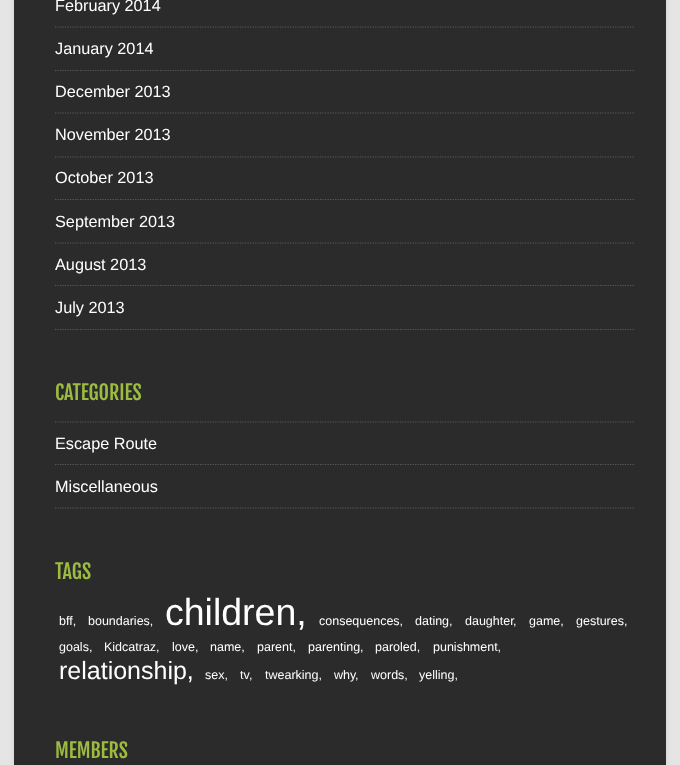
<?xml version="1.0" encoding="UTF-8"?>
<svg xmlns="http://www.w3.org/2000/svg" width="680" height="765">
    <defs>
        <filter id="blur1" x="-50%" y="-200%" width="200%" height="500%"><feGaussianBlur stdDeviation="3"/></filter>
    </defs>
    <rect width="100%" height="100%" fill="#E5E5E5"/>
    <rect x="14" y="-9" width="652" height="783" fill="#D0D0D0" filter="url(#blur1)"/>
    <rect x="14" y="0" width="652" height="765" fill="#2B2B2B"/>
    <text x="55" y="11" font-family="Liberation Sans" font-size="16.25" fill="#FFFFFF">February 2014</text>
    <path d="M 55 27 H 634" fill="none" stroke="#5B5B5B" stroke-width="1.2" stroke-dasharray="1.25 1.25"/>
    <text x="55" y="54" font-family="Liberation Sans" font-size="16.25" fill="#FFFFFF">January 2014</text>
    <path d="M 55 70.5 H 634" fill="none" stroke="#5B5B5B" stroke-width="1.2" stroke-dasharray="1.25 1.25"/>
    <text x="55" y="97" font-family="Liberation Sans" font-size="16.25" fill="#FFFFFF">December 2013</text>
    <path d="M 55 113 H 634" fill="none" stroke="#5B5B5B" stroke-width="1.2" stroke-dasharray="1.25 1.25"/>
    <text x="55" y="140" font-family="Liberation Sans" font-size="16.25" fill="#FFFFFF">November 2013</text>
    <path d="M 55 157 H 634" fill="none" stroke="#5B5B5B" stroke-width="1.2" stroke-dasharray="1.25 1.25"/>
    <text x="55" y="183" font-family="Liberation Sans" font-size="16.25" fill="#FFFFFF">October 2013</text>
    <path d="M 55 199.5 H 634" fill="none" stroke="#5B5B5B" stroke-width="1.2" stroke-dasharray="1.25 1.25"/>
    <text x="55" y="227" font-family="Liberation Sans" font-size="16.25" fill="#FFFFFF">September 2013</text>
    <path d="M 55 243 H 634" fill="none" stroke="#5B5B5B" stroke-width="1.2" stroke-dasharray="1.25 1.25"/>
    <text x="55" y="270" font-family="Liberation Sans" font-size="16.25" fill="#FFFFFF">August 2013</text>
    <path d="M 55 285.5 H 634" fill="none" stroke="#5B5B5B" stroke-width="1.2" stroke-dasharray="1.25 1.25"/>
    <path d="M 55 329.5 H 634" fill="none" stroke="#5B5B5B" stroke-width="1.2" stroke-dasharray="1.25 1.25"/>
    <text x="55" y="313" font-family="Liberation Sans" font-size="16.25" fill="#FFFFFF">July 2013</text>
    <text x="55" y="400" font-family="Fjalla One" font-size="20" fill="#9DBB41">CATEGORIES</text>
    <path d="M 55 422 H 634" fill="none" stroke="#5B5B5B" stroke-width="1.2" stroke-dasharray="1.25 1.25"/>
    <text x="55" y="449" font-family="Liberation Sans" font-size="16.25" fill="#FFFFFF">Escape Route</text>
    <path d="M 55 464.5 H 634" fill="none" stroke="#5B5B5B" stroke-width="1.2" stroke-dasharray="1.25 1.25"/>
    <path d="M 55 508 H 634" fill="none" stroke="#5B5B5B" stroke-width="1.2" stroke-dasharray="1.25 1.25"/>
    <text x="55" y="492" font-family="Liberation Sans" font-size="16.25" fill="#FFFFFF">Miscellaneous</text>
    <text x="55" y="579" font-family="Fjalla One" font-size="20" fill="#9DBB41">TAGS</text>
    <text x="59" y="625" font-family="Liberation Sans" font-size="12.5" fill="#FFFFFF">bff,</text>
    <text x="88" y="625" font-family="Liberation Sans" font-size="12.5" fill="#FFFFFF">boundaries,</text>
    <text x="165" y="625" font-family="Liberation Sans" font-size="37.5" fill="#FFFFFF">children,</text>
    <text x="319" y="625" font-family="Liberation Sans" font-size="12.5" fill="#FFFFFF">consequences,</text>
    <text x="415" y="625" font-family="Liberation Sans" font-size="12.5" fill="#FFFFFF">dating,</text>
    <text x="465" y="625" font-family="Liberation Sans" font-size="12.5" fill="#FFFFFF">daughter</text>
    <text x="513" y="625" font-family="Liberation Sans" font-size="12.5" fill="#FFFFFF">,</text>
    <text x="529" y="625" font-family="Liberation Sans" font-size="12.5" fill="#FFFFFF">game,</text>
    <text x="576" y="625" font-family="Liberation Sans" font-size="12.5" fill="#FFFFFF">gestures,</text>
    <text x="59" y="651" font-family="Liberation Sans" font-size="12.5" fill="#FFFFFF">goals,</text>
    <text x="104" y="651" font-family="Liberation Sans" font-size="12.5" fill="#FFFFFF">Kidcatraz,</text>
    <text x="172" y="651" font-family="Liberation Sans" font-size="12.5" fill="#FFFFFF">love,</text>
    <text x="210" y="651" font-family="Liberation Sans" font-size="12.5" fill="#FFFFFF">name,</text>
    <text x="257" y="651" font-family="Liberation Sans" font-size="12.5" fill="#FFFFFF">parent,</text>
    <text x="308" y="651" font-family="Liberation Sans" font-size="12.5" fill="#FFFFFF">parenting,</text>
    <text x="375" y="651" font-family="Liberation Sans" font-size="12.5" fill="#FFFFFF">paroled,</text>
    <text x="433" y="651" font-family="Liberation Sans" font-size="12.5" fill="#FFFFFF">punishment,</text>
    <text x="59" y="679" font-family="Liberation Sans" font-size="25" fill="#FFFFFF">relationship,</text>
    <text x="205" y="679" font-family="Liberation Sans" font-size="12.5" fill="#FFFFFF">sex,</text>
    <text x="240" y="679" font-family="Liberation Sans" font-size="12.5" fill="#FFFFFF">tv</text>
    <text x="265" y="679" font-family="Liberation Sans" font-size="12.5" fill="#FFFFFF">twearking,</text>
    <text x="334" y="679" font-family="Liberation Sans" font-size="12.5" fill="#FFFFFF">why</text>
    <text x="371" y="679" font-family="Liberation Sans" font-size="12.5" fill="#FFFFFF">words,</text>
    <text x="419" y="679" font-family="Liberation Sans" font-size="12.5" fill="#FFFFFF">yelling,</text>
    <text x="249" y="679" font-family="Liberation Sans" font-size="12.5" fill="#FFFFFF">,</text>
    <text x="355" y="679" font-family="Liberation Sans" font-size="12.5" fill="#FFFFFF">,</text>
    <text x="55" y="758" font-family="Fjalla One" font-size="20" fill="#9DBB41">MEMBERS</text>
</svg>
